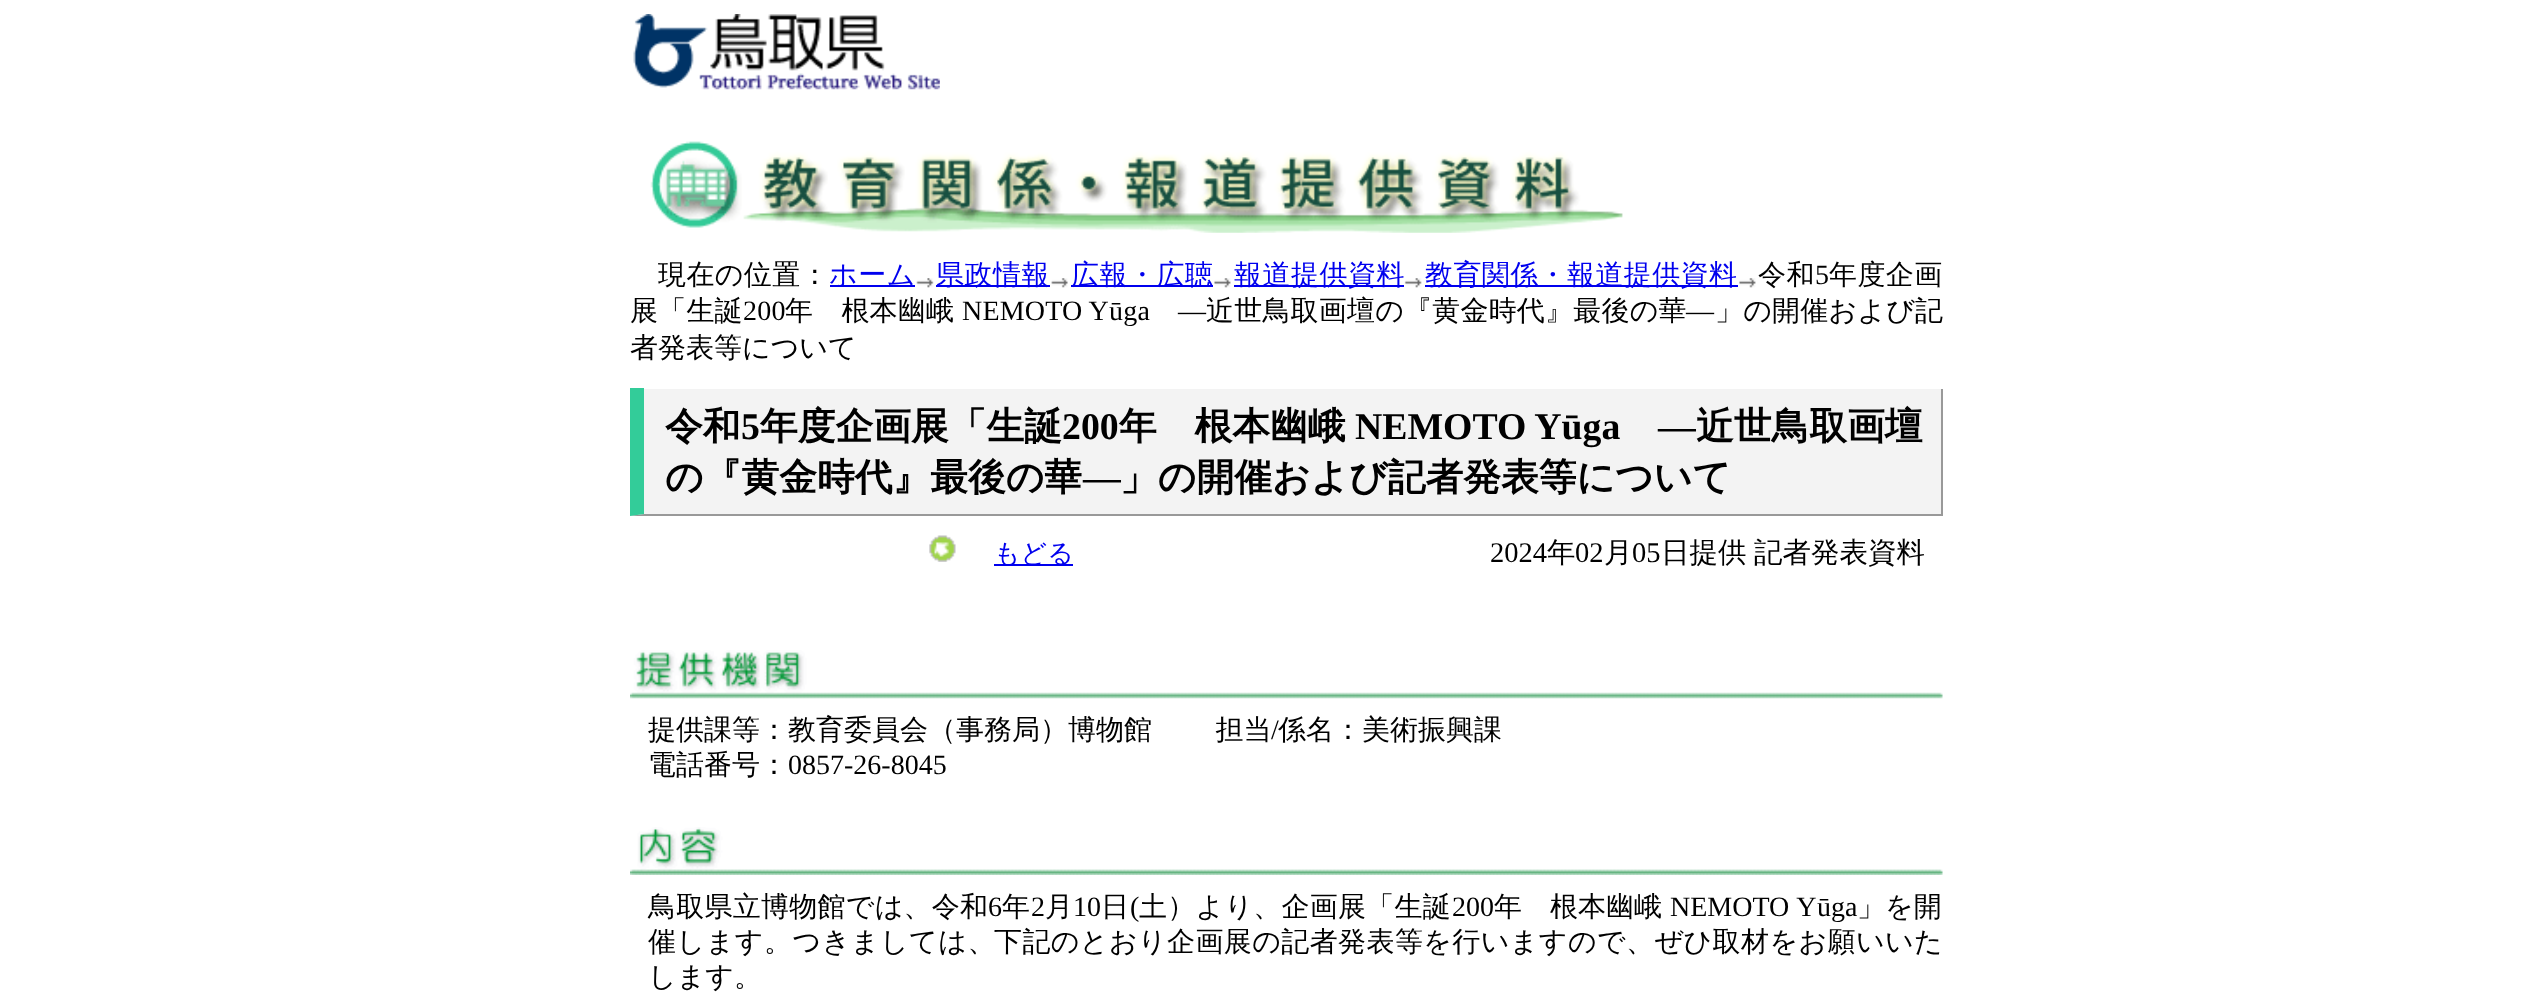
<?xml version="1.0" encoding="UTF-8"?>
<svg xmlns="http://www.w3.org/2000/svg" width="2543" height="999">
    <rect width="100%" height="100%" fill="#FFFFFF"/>
    <image x="633" y="14" width="307" height="76" href="img_01.png"/>
    <image x="650" y="141" width="973" height="92" href="img_02.png"/>
    <text x="658" y="284" font-family="WenQuanYi Zen Hei" font-size="28" font-weight="500" letter-spacing="0.4" fill="#000000">現在の位置：</text>
    <rect x="830" y="285" width="85" height="2" fill="#0000EE"/>
    <text x="829" y="284" font-family="WenQuanYi Zen Hei" font-size="28" font-weight="500" letter-spacing="0.5" fill="#0000EE">ホーム</text>
    <image x="916" y="278" width="18" height="10" href="img_03.png"/>
    <rect x="936" y="285" width="114" height="2" fill="#0000EE"/>
    <text x="936" y="284" font-family="WenQuanYi Zen Hei" font-size="28" font-weight="500" letter-spacing="0.5" fill="#0000EE">県政情報</text>
    <image x="1051" y="278" width="17" height="10" href="img_04.png"/>
    <rect x="1071" y="285" width="142" height="2" fill="#0000EE"/>
    <text x="1071" y="284" font-family="WenQuanYi Zen Hei" font-size="28" font-weight="500" letter-spacing="0.5" fill="#0000EE">広報・広聴</text>
    <image x="1214" y="278" width="17" height="10" href="img_05.png"/>
    <rect x="1234" y="285" width="170" height="2" fill="#0000EE"/>
    <text x="1234" y="284" font-family="WenQuanYi Zen Hei" font-size="28" font-weight="500" letter-spacing="0.5" fill="#0000EE">報道提供資料</text>
    <image x="1404" y="278" width="18" height="10" href="img_06.png"/>
    <rect x="1425" y="285" width="313" height="2" fill="#0000EE"/>
    <text x="1425" y="284" font-family="WenQuanYi Zen Hei" font-size="28" font-weight="500" letter-spacing="0.4" fill="#0000EE">教育関係・報道提供資料</text>
    <image x="1739" y="278" width="17" height="10" href="img_05.png"/>
    <text x="1758" y="284" font-family="WenQuanYi Zen Hei" font-size="28" font-weight="500" letter-spacing="0.4" fill="#000000">令和</text>
    <text x="1815" y="284" font-family="Liberation Serif" font-size="28" letter-spacing="0.4" fill="#000000">5</text>
    <text x="1829" y="284" font-family="WenQuanYi Zen Hei" font-size="28" font-weight="500" letter-spacing="0.4" fill="#000000">年度企画</text>
    <text x="630" y="320" font-family="WenQuanYi Zen Hei" font-size="28" font-weight="500" letter-spacing="0.2" fill="#000000">展「生誕</text>
    <text x="743" y="320" font-family="Liberation Serif" font-size="28" letter-spacing="0.2" fill="#000000">200</text>
    <text x="785" y="320" font-family="WenQuanYi Zen Hei" font-size="28" font-weight="500" letter-spacing="0.2" fill="#000000">年　根本幽峨</text>
    <text x="962" y="320" font-family="Liberation Serif" font-size="28" letter-spacing="0.2" fill="#000000">NEMOTO Yūga</text>
    <text x="1178" y="320" font-family="Liberation Serif" font-size="28" letter-spacing="0.2" fill="#000000">―</text>
    <text x="1206" y="320" font-family="WenQuanYi Zen Hei" font-size="28" font-weight="500" letter-spacing="0.2" fill="#000000">近世鳥取画壇の『黄金時代』最後の華</text>
    <text x="1686" y="320" font-family="Liberation Serif" font-size="28" letter-spacing="0.2" fill="#000000">―</text>
    <text x="1715" y="320" font-family="WenQuanYi Zen Hei" font-size="28" font-weight="500" letter-spacing="0.2" fill="#000000">」の開催および記</text>
    <text x="630" y="357" font-family="WenQuanYi Zen Hei" font-size="28" font-weight="500" fill="#000000">者発表等について</text>
    <rect x="630" y="389" width="1311" height="127" fill="#F3F3F3"/>
    <rect x="1941" y="389" width="2" height="127" fill="#999999"/>
    <path d="M 1942 516 H 630 L 644 514 H 1941 Z" fill="#999999"/>
    <path d="M 630 516 V 388 H 644 V 514 Z" fill="#33CC99"/>
    <text x="665" y="439" font-family="WenQuanYi Zen Hei" font-size="37.75" font-weight="700" fill="#000000">令和</text>
    <text x="741" y="439" font-family="Liberation Serif" font-size="37.75" font-weight="700" fill="#000000">5</text>
    <text x="760" y="439" font-family="WenQuanYi Zen Hei" font-size="37.75" font-weight="700" fill="#000000">年度企画展「生誕</text>
    <text x="1062" y="439" font-family="Liberation Serif" font-size="37.75" font-weight="700" fill="#000000">200</text>
    <text x="1119" y="439" font-family="WenQuanYi Zen Hei" font-size="37.75" font-weight="700" fill="#000000">年　根本幽峨</text>
    <text x="1355" y="439" font-family="Liberation Serif" font-size="37.75" font-weight="700" fill="#000000">NEMOTO Yūga</text>
    <text x="1658" y="439" font-family="Liberation Serif" font-size="37.75" font-weight="700" fill="#000000">―</text>
    <text x="1696" y="439" font-family="WenQuanYi Zen Hei" font-size="37.75" font-weight="700" fill="#000000">近世鳥取画壇</text>
    <text x="665" y="490" font-family="WenQuanYi Zen Hei" font-size="37.75" font-weight="700" fill="#000000">の『黄金時代』最後の華</text>
    <text x="1083" y="490" font-family="Liberation Serif" font-size="37.75" font-weight="700" fill="#000000">―</text>
    <text x="1120" y="490" font-family="WenQuanYi Zen Hei" font-size="37.75" font-weight="700" fill="#000000">」の開催および記者発表等について</text>
    <image x="929" y="535" width="27" height="27" href="img_07.png"/>
    <rect x="994" y="564" width="79" height="2" fill="#0000EE"/>
    <text x="994" y="562" font-family="WenQuanYi Zen Hei" font-size="26" font-weight="500" fill="#0000EE">もどる</text>
    <text x="1490" y="562" font-family="Liberation Serif" font-size="28.5" fill="#000000">2024</text>
    <text x="1547" y="562" font-family="WenQuanYi Zen Hei" font-size="28.5" font-weight="500" fill="#000000">年</text>
    <text x="1575" y="562" font-family="Liberation Serif" font-size="28.5" fill="#000000">02</text>
    <text x="1604" y="562" font-family="WenQuanYi Zen Hei" font-size="28.5" font-weight="500" fill="#000000">月</text>
    <text x="1632" y="562" font-family="Liberation Serif" font-size="28.5" fill="#000000">05</text>
    <text x="1661" y="562" font-family="WenQuanYi Zen Hei" font-size="28.5" font-weight="500" fill="#000000">日提供</text>
    <text x="1754" y="562" font-family="WenQuanYi Zen Hei" font-size="28.5" font-weight="500" fill="#000000">記者発表資料</text>
    <image x="630" y="650" width="1313" height="49" href="img_08.png"/>
    <text x="648" y="739" word-spacing="-1" font-family="WenQuanYi Zen Hei" font-size="28" font-weight="500" fill="#000000">提供課等：教育委員会（事務局）博物館　　 担当</text>
    <text x="1271" y="739" font-family="Liberation Serif" font-size="28" fill="#000000">/</text>
    <text x="1278" y="739" font-family="WenQuanYi Zen Hei" font-size="28" font-weight="500" fill="#000000">係名：美術振興課</text>
    <text x="648" y="774" font-family="WenQuanYi Zen Hei" font-size="28" font-weight="500" fill="#000000">電話番号：</text>
    <text x="788" y="774" font-family="Liberation Serif" font-size="28" fill="#000000">0857-26-8045</text>
    <image x="630" y="827" width="1313" height="48" href="img_09.png"/>
    <text x="648" y="916" font-family="WenQuanYi Zen Hei" font-size="28" font-weight="500" letter-spacing="0.25" fill="#000000">鳥取県立博物館では、令和</text>
    <text x="988" y="916" font-family="Liberation Serif" font-size="28" letter-spacing="0.25" fill="#000000">6</text>
    <text x="1002" y="916" font-family="WenQuanYi Zen Hei" font-size="28" font-weight="500" letter-spacing="0.25" fill="#000000">年</text>
    <text x="1031" y="916" font-family="Liberation Serif" font-size="28" letter-spacing="0.25" fill="#000000">2</text>
    <text x="1045" y="916" font-family="WenQuanYi Zen Hei" font-size="28" font-weight="500" letter-spacing="0.25" fill="#000000">月</text>
    <text x="1073" y="916" font-family="Liberation Serif" font-size="28" letter-spacing="0.25" fill="#000000">1</text>
    <text x="1087" y="916" font-family="Liberation Serif" font-size="28" fill="#000000">0</text>
    <text x="1101" y="916" font-family="WenQuanYi Zen Hei" font-size="28" font-weight="500" letter-spacing="0.25" fill="#000000">日</text>
    <text x="1130" y="916" font-family="Liberation Serif" font-size="28" letter-spacing="0.25" fill="#000000">(</text>
    <text x="1139" y="916" font-family="WenQuanYi Zen Hei" font-size="28" font-weight="500" letter-spacing="0.25" fill="#000000">土）より、企画展「生誕</text>
    <text x="1452" y="916" font-family="Liberation Serif" font-size="28" letter-spacing="0.25" fill="#000000">2</text>
    <text x="1466" y="916" font-family="Liberation Serif" font-size="28" fill="#000000">00</text>
    <text x="1494" y="916" font-family="WenQuanYi Zen Hei" font-size="28" font-weight="500" fill="#000000">年　根本幽峨</text>
    <text x="1670" y="916" word-spacing="1" font-family="Liberation Serif" font-size="28" fill="#000000">NEMOTO Y</text>
    <text x="1817" y="916" font-family="Liberation Serif" font-size="28" fill="#000000">ū</text>
    <text x="1831" y="916" font-family="Liberation Serif" font-size="28" fill="#000000">ga</text>
    <text x="1857" y="916" font-family="WenQuanYi Zen Hei" font-size="28" font-weight="500" fill="#000000">」を開</text>
    <text x="648" y="951" font-family="WenQuanYi Zen Hei" font-size="28" font-weight="500" letter-spacing="0.5" fill="#000000">催します。つきましては、</text>
    <text x="994" y="951" font-family="WenQuanYi Zen Hei" font-size="28" font-weight="500" letter-spacing="0.4" fill="#000000">下記のとおり企画展の記者発表等を行います</text>
    <text x="1568" y="951" font-family="WenQuanYi Zen Hei" font-size="28" font-weight="500" letter-spacing="0.4" fill="#000000">ので、ぜひ取材をお願いいた</text>
    <text x="648" y="986" font-family="WenQuanYi Zen Hei" font-size="28" font-weight="500" fill="#000000">します。</text>
</svg>
